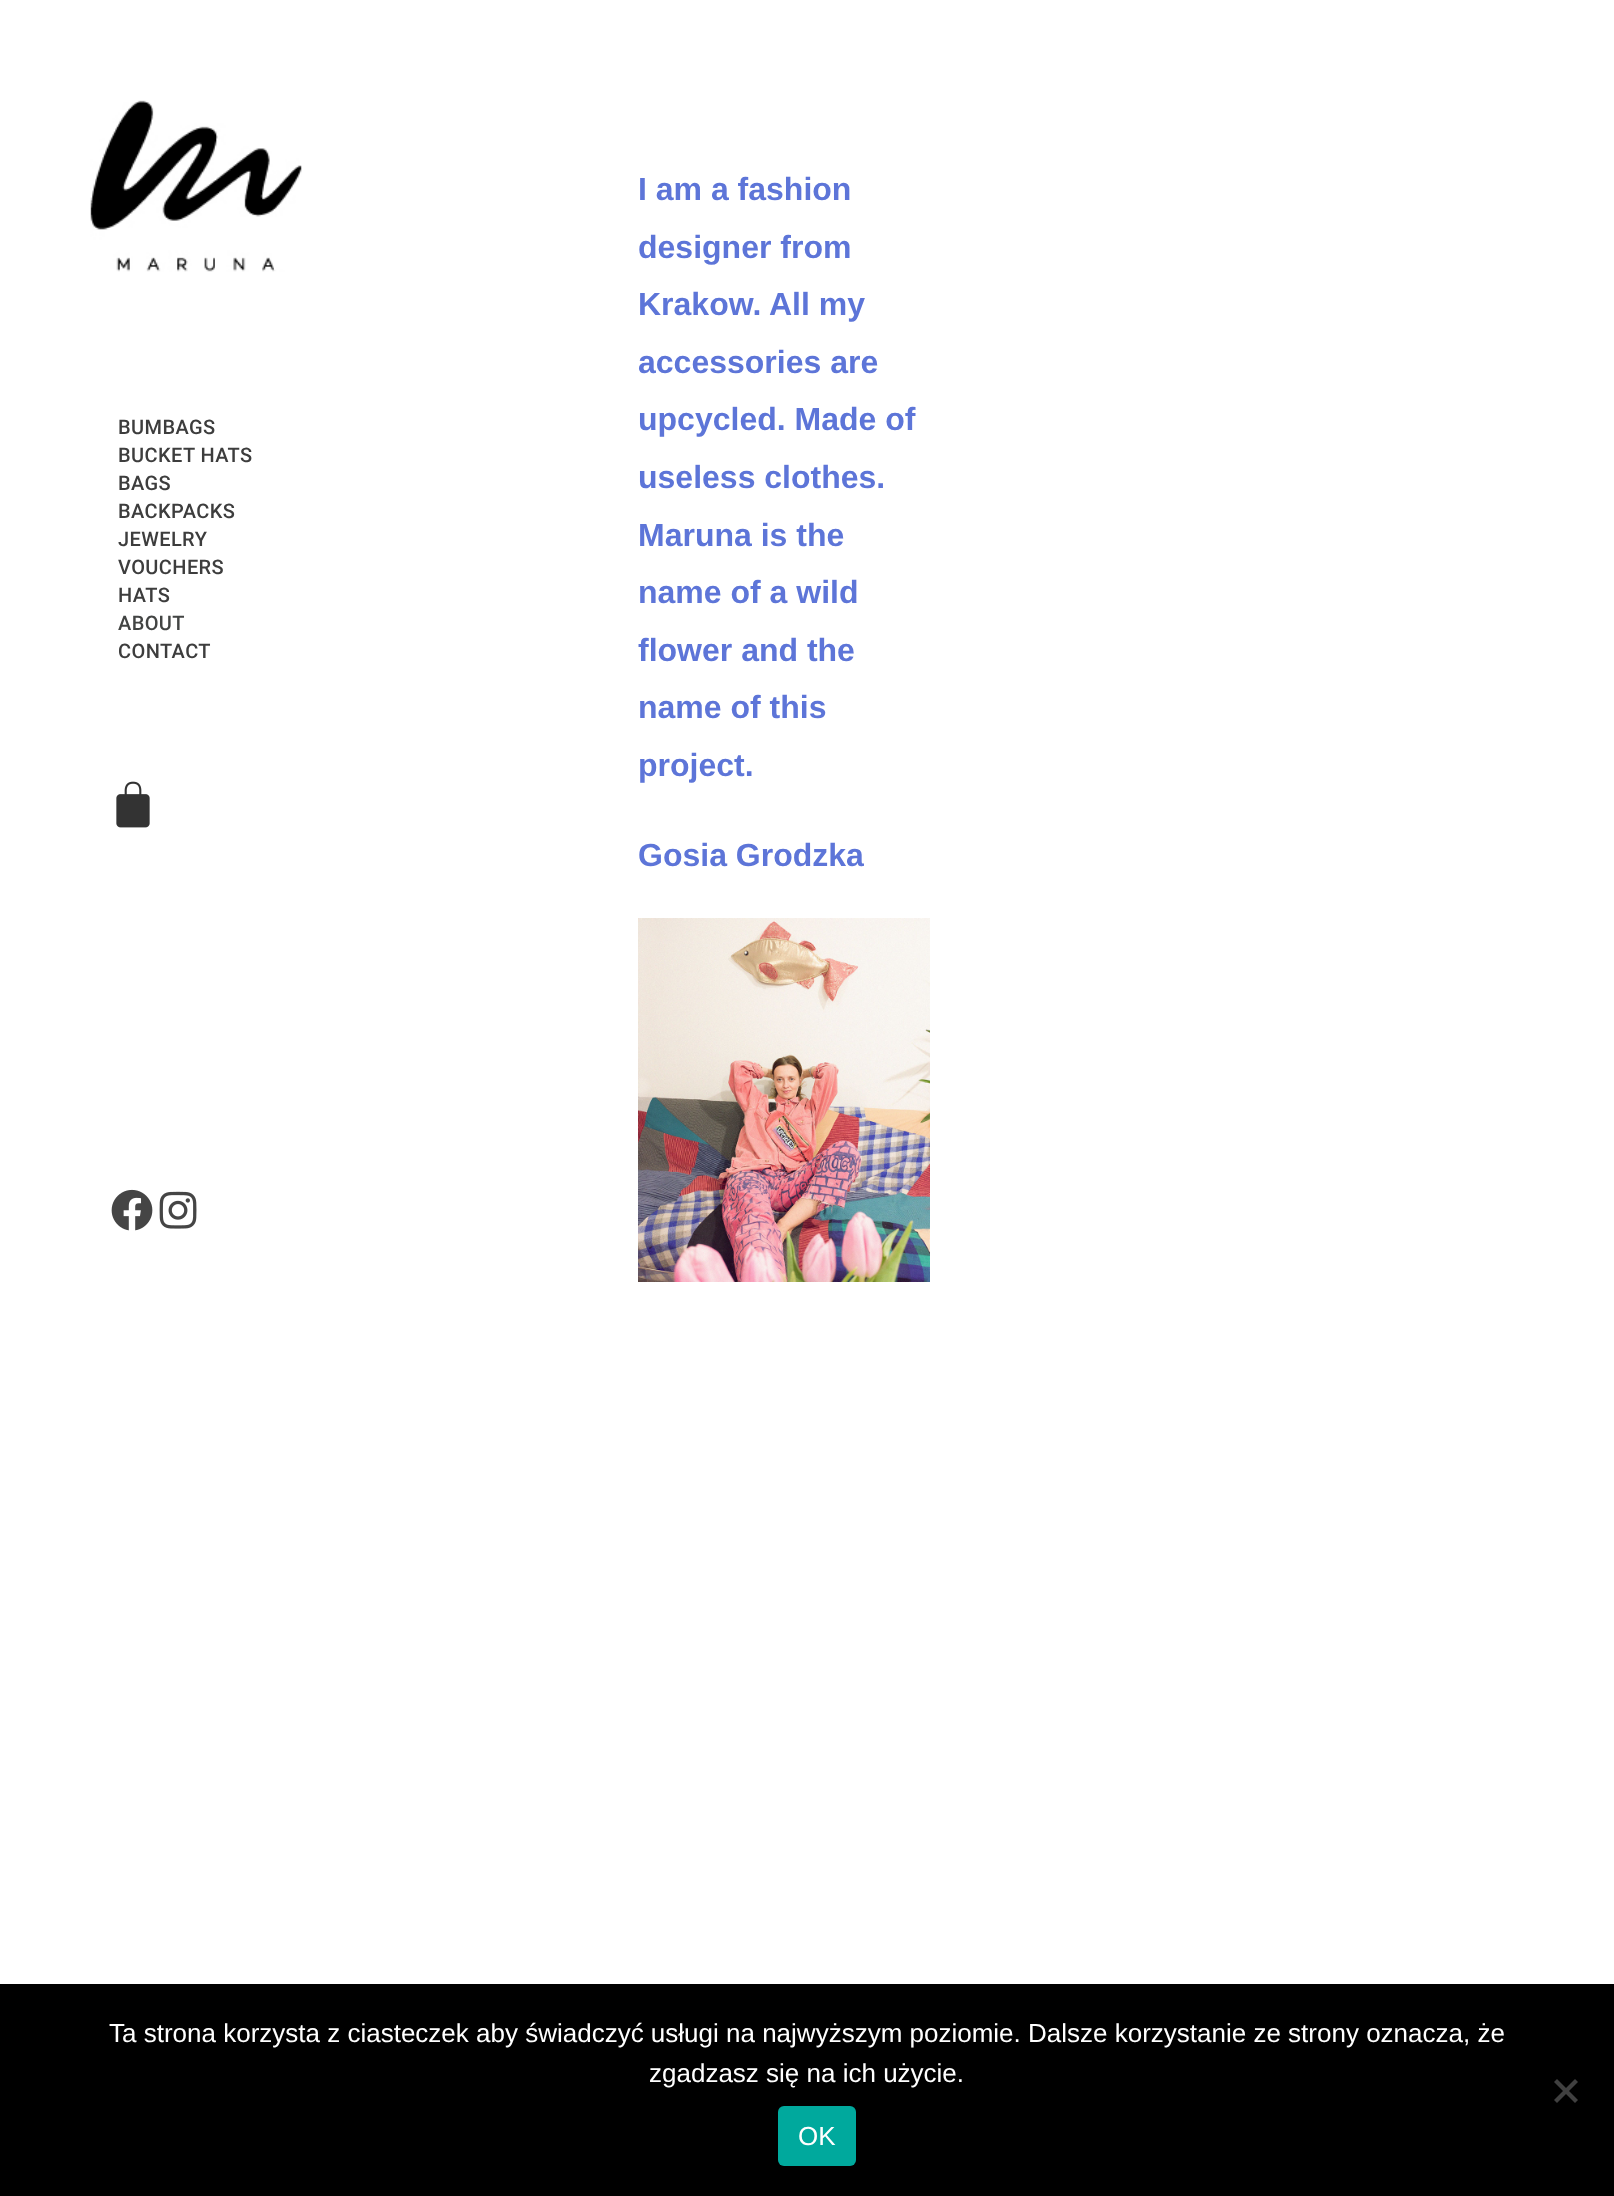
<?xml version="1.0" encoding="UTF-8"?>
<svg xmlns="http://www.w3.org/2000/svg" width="1614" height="2196">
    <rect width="100%" height="100%" fill="#FFFFFF"/>
    <image x="90" y="100" width="212" height="172" href="img_01.png"/>
    <text font-family="Roboto" font-size="20" font-weight="500" letter-spacing="0.4" fill="#3D3D3D">
        <tspan x="118" y="434">BUMBAGS</tspan>
        <tspan x="118" y="462">BUCKET HATS</tspan>
        <tspan x="118" y="490">BAGS</tspan>
        <tspan x="118" y="518">BACKPACKS</tspan>
        <tspan x="118" y="546">JEWELRY</tspan>
        <tspan x="118" y="574">VOUCHERS</tspan>
        <tspan x="118" y="602">HATS</tspan>
    </text>
    <text x="118" y="630" font-family="Roboto" font-size="20" font-weight="500" letter-spacing="0.4" fill="#424443">ABOUT</text>
    <text x="118" y="658" font-family="Roboto" font-size="20" font-weight="500" letter-spacing="0.4" fill="#3D3D3D">CONTACT</text>
    <image x="116" y="781" width="34" height="47" href="img_02.png"/>
    <image x="111" y="1189" width="42" height="42" href="img_03.png"/>
    <image x="159" y="1191" width="38" height="38" href="img_04.png"/>
    <text font-family="Liberation Sans" font-size="32" font-weight="700" fill="#5D75D8">
        <tspan x="638" y="200">I am a fashion</tspan>
        <tspan x="638" y="258">designer from</tspan>
        <tspan x="638" y="315">Krakow. All my</tspan>
        <tspan x="638" y="373">accessories are</tspan>
        <tspan x="638" y="430">upcycled. Made of</tspan>
        <tspan x="638" y="488">useless clothes.</tspan>
        <tspan x="638" y="546">Maruna is the</tspan>
        <tspan x="638" y="603">name of a wild</tspan>
        <tspan x="638" y="661">flower and the</tspan>
        <tspan x="638" y="718">name of this</tspan>
        <tspan x="638" y="776">project.</tspan>
    </text>
    <text x="638" y="866" font-family="Liberation Sans" font-size="32" font-weight="700" fill="#5D75D8">Gosia Grodzka</text>
    <image x="638" y="918" width="292" height="364" href="img_05.png"/>
    <rect x="0" y="1984" width="1614" height="212" fill="#000000"/>
    <text x="109" y="2042" font-family="Liberation Sans" font-size="26" fill="#FFFFFF">Ta strona korzysta z ciasteczek aby świadczyć usługi na najwyższym poziomie. Dalsze korzystanie ze strony oznacza, że</text>
    <text x="649" y="2082" font-family="Liberation Sans" font-size="26" fill="#FFFFFF">zgadzasz się na ich użycie.</text>
    <path d="M 1575 2079 L 1578 2082 L 1557 2103 L 1554 2100 Z" fill="#404040"/>
    <path d="M 1554 2082 L 1557 2079 L 1578 2100 L 1575 2103 Z" fill="#404040"/>
    <rect x="778" y="2106" width="78" height="60" rx="6" fill="#00A99D"/>
    <text x="798" y="2145" font-family="Liberation Sans" font-size="26" fill="#FFFFFF">OK</text>
</svg>
